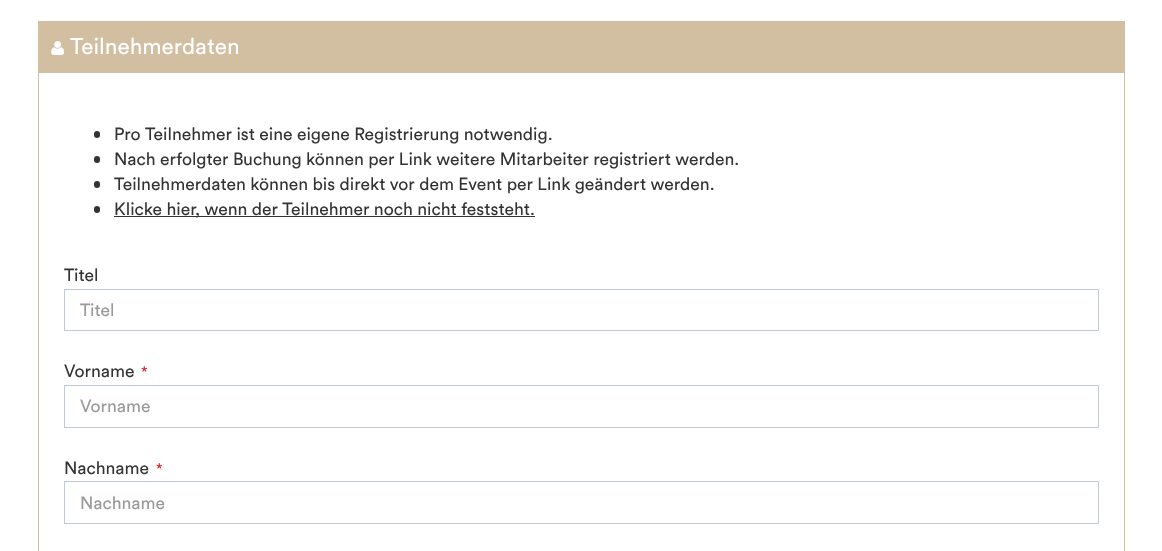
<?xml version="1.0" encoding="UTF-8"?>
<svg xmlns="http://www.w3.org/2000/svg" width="1162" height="551">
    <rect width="100%" height="100%" fill="#FFFFFF"/>
    <rect x="38" y="21" width="1087" height="530" fill="#D2BEA0"/>
    <image x="51" y="41" width="13" height="14" href="img_01.png"/>
    <text x="70" y="54" font-family="Circular" font-size="22.5" fill="#FFFFFF">Teilnehmerdaten</text>
    <rect x="39" y="73" width="1085" height="478" fill="#FFFFFF"/>
    <rect x="94" y="131" width="6" height="7" rx="3" fill="#333333"/>
    <text x="114" y="140" font-family="Circular" font-size="17.5" fill="#333333">Pro Teilnehmer ist eine eigene Registrierung notwendig.</text>
    <rect x="94" y="156" width="6" height="7" rx="3" fill="#333333"/>
    <text x="114" y="165" font-family="Circular" font-size="17.5" fill="#333333">Nach erfolgter Buchung können per Link weitere Mitarbeiter registriert werden.</text>
    <rect x="94" y="181" width="6" height="7" rx="3" fill="#333333"/>
    <text x="114" y="190" font-family="Circular" font-size="17.5" fill="#333333">Teilnehmerdaten können bis direkt vor dem Event per Link geändert werden.</text>
    <rect x="94" y="206" width="6" height="7" rx="3" fill="#333333"/>
    <rect x="114" y="216" width="421" height="1" fill="#333333"/>
    <text x="114" y="215" font-family="Circular" font-size="17.5" fill="#333333">Klicke hier, wenn der Teilnehmer noch nicht feststeht.</text>
    <text x="64" y="281" font-family="Circular" font-size="17.5" fill="#333333">Titel</text>
    <rect x="64.5" y="289.5" width="1034" height="41" fill="none" stroke="#C2CAD8"/>
    <text x="80" y="316" font-family="Circular" font-size="17.5" fill="#999999">Titel</text>
    <text x="64" y="377" font-family="Circular" font-size="17.5" fill="#333333">Vorname</text>
    <text x="141" y="377" font-family="Circular" font-size="15" fill="#E02222">*</text>
    <rect x="64.5" y="385.5" width="1034" height="42" fill="none" stroke="#C2CAD8"/>
    <text x="80" y="412" font-family="Circular" font-size="17.5" fill="#999999">Vorname</text>
    <text x="64" y="474" font-family="Circular" font-size="17.5" fill="#333333">Nachname</text>
    <text x="156" y="474" font-family="Circular" font-size="15" fill="#E02222">*</text>
    <rect x="64.5" y="481.5" width="1034" height="42" fill="none" stroke="#C2CAD8"/>
    <text x="80" y="509" font-family="Circular" font-size="17.5" fill="#999999">Nachname</text>
</svg>
